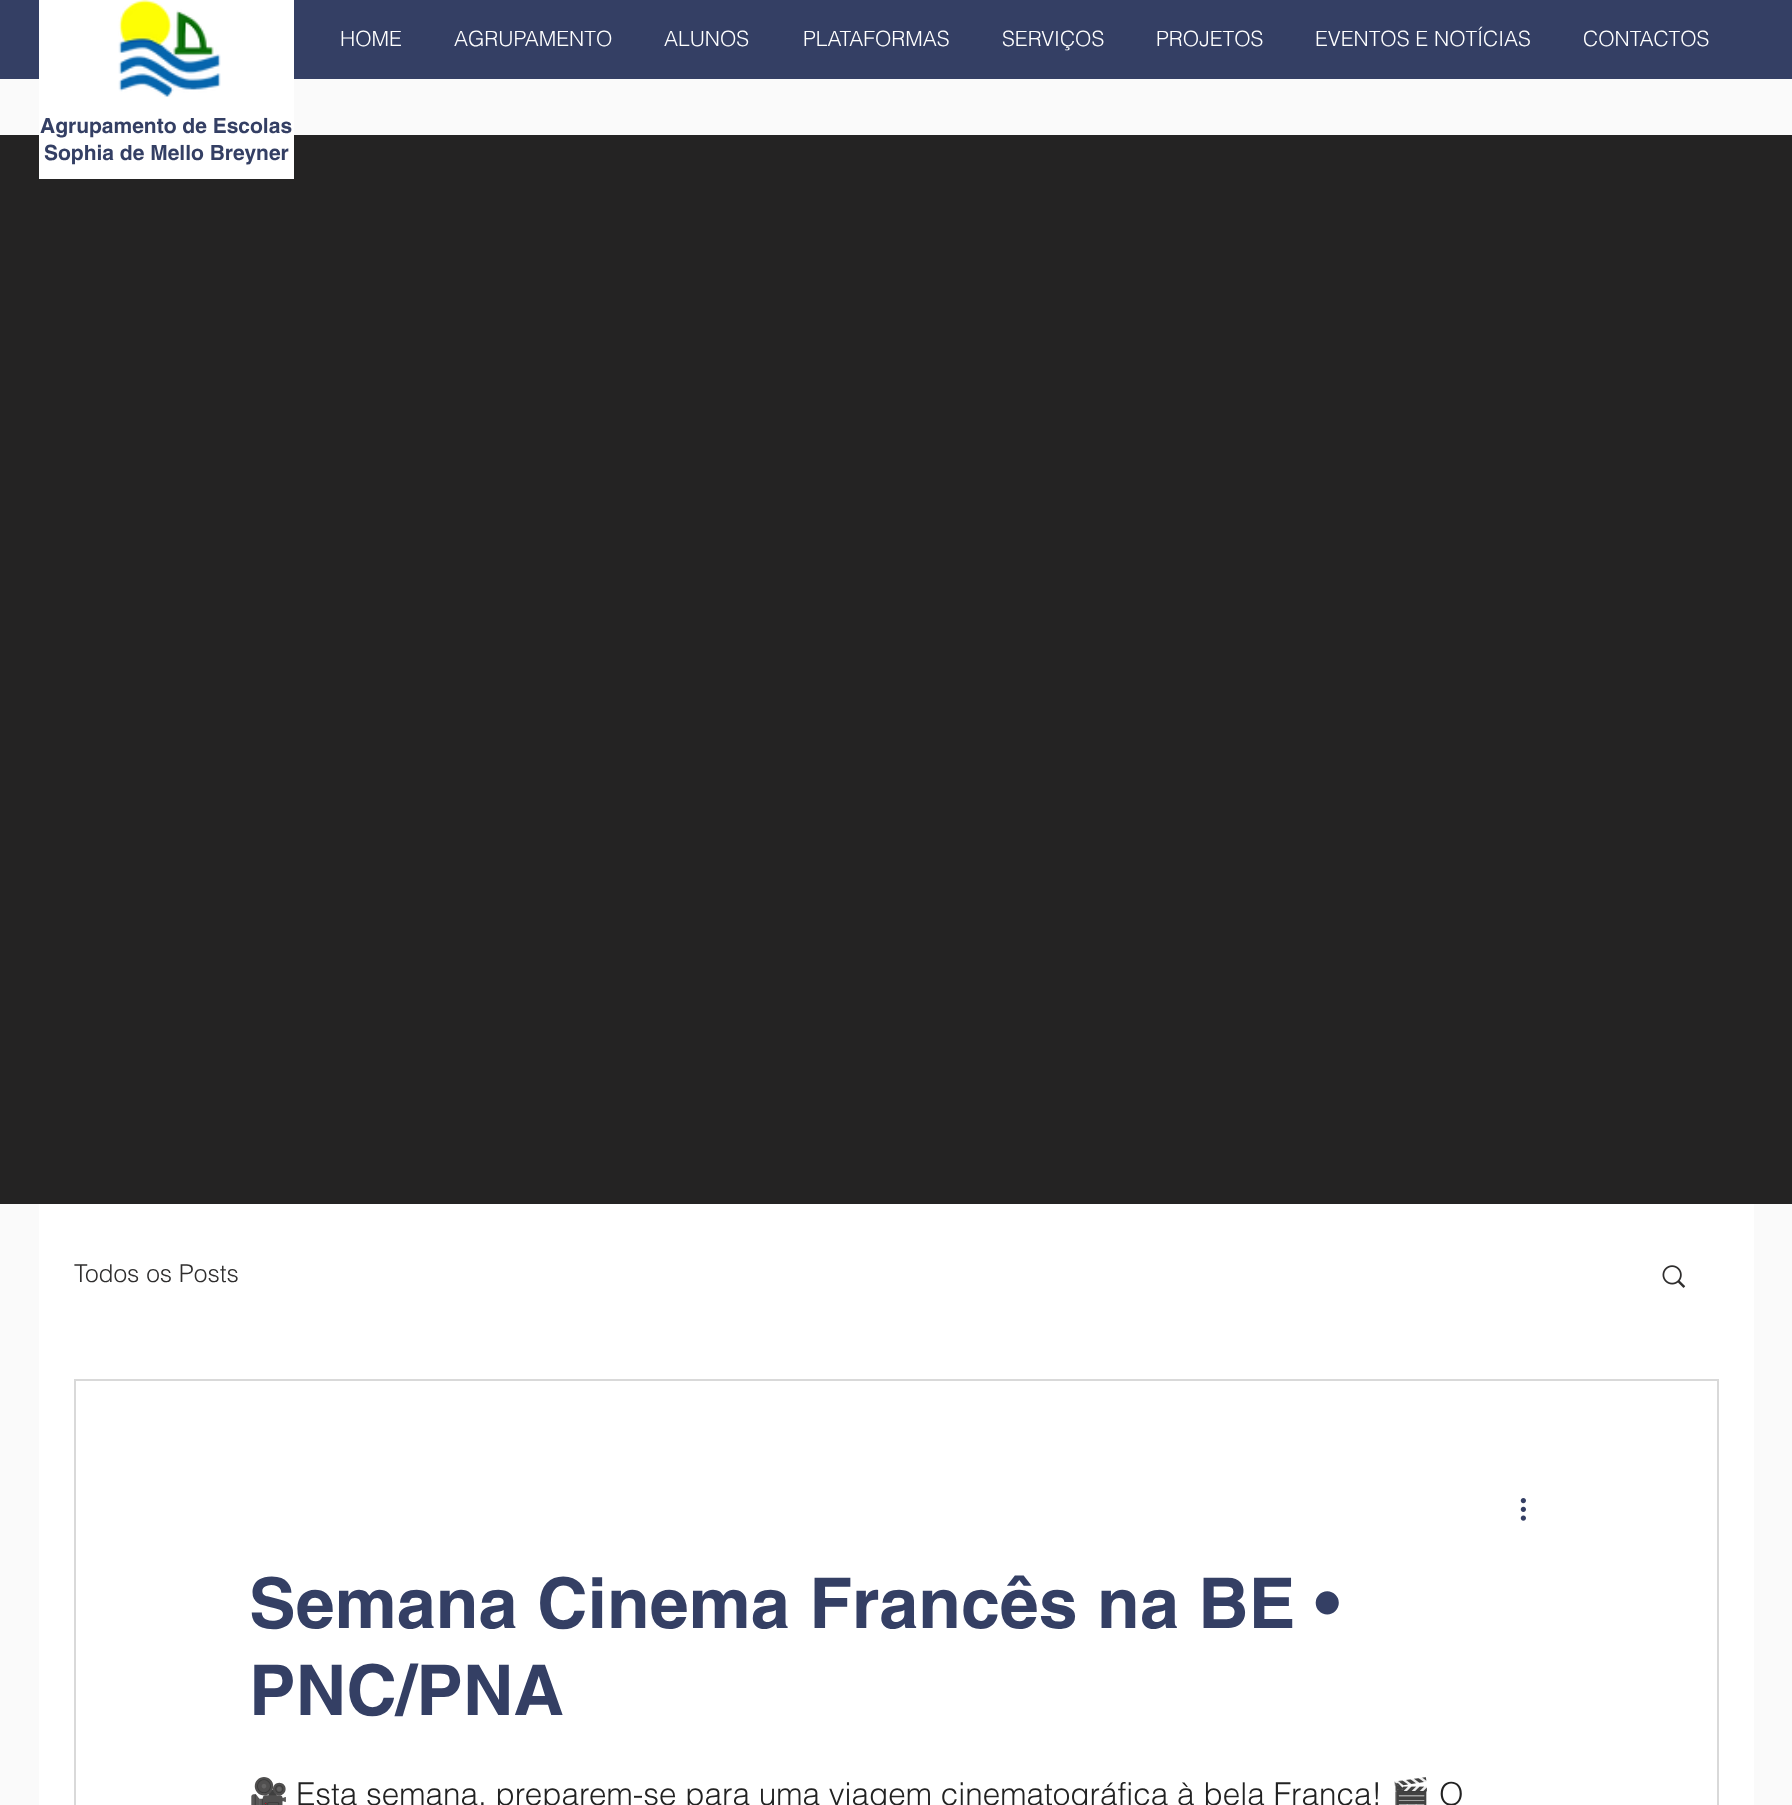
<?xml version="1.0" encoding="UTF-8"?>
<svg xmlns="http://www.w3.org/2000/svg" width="1792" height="1805">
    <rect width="100%" height="100%" fill="#FAFAFA"/>
    <rect x="0" y="0" width="1792" height="79" fill="#343F64"/>
    <text x="340" y="46" font-family="helvetica" font-size="21" font-weight="300" fill="#FFFFFF">HOME</text>
    <text x="454" y="46" font-family="helvetica" font-size="21" font-weight="300" fill="#FFFFFF">AGRUPAMENTO</text>
    <text x="664" y="46" font-family="helvetica" font-size="21" font-weight="300" fill="#FFFFFF">ALUNOS</text>
    <text x="803" y="46" font-family="helvetica" font-size="21" font-weight="300" fill="#FFFFFF">PLATAFORMAS</text>
    <text x="1002" y="46" font-family="helvetica" font-size="21" font-weight="300" fill="#FFFFFF">SERVIÇOS</text>
    <text x="1156" y="46" font-family="helvetica" font-size="21" font-weight="300" fill="#FFFFFF">PROJETOS</text>
    <text x="1315" y="46" font-family="helvetica" font-size="21" font-weight="300" fill="#FFFFFF">EVENTOS E NOTÍCIAS</text>
    <text x="1583" y="46" font-family="helvetica" font-size="21" font-weight="300" fill="#FFFFFF">CONTACTOS</text>
    <rect x="0" y="135" width="1792" height="1069" fill="#242323"/>
    <rect x="39" y="0" width="255" height="179" fill="#FFFFFF"/>
    <image x="118" y="0" width="103" height="97" href="img_01.png"/>
    <text x="40" y="133" font-family="helvetica" font-size="21" font-weight="700" fill="#343F64">Agrupamento de Escolas</text>
    <text x="44" y="160" font-family="helvetica" font-size="21" font-weight="700" fill="#343F64">Sophia de Mello Breyner</text>
    <rect x="39" y="1204" width="1715" height="601" fill="#FFFFFF"/>
    <text x="74" y="1282" font-family="helvetica" font-size="24.5" font-weight="300" fill="#2F2E2E">Todos os Posts</text>
    <image x="1662" y="1265" width="24" height="23" href="img_02.png"/>
    <rect x="75" y="1380" width="1643" height="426" fill="none" stroke="#D9D9D9" stroke-width="2"/>
    <image x="1520" y="1498" width="6" height="23" href="img_03.png"/>
    <text font-family="helvetica" font-size="70" font-weight="700" fill="#343F64">
        <tspan x="249" y="1628">Semana Cinema Francês na BE •</tspan>
        <tspan x="249" y="1715">PNC/PNA</tspan>
    </text>
    <text x="249" y="1805" font-family="Noto Color Emoji" font-size="31.5" fill="#222222">🎥</text>
    <text x="296" y="1805" font-family="helvetica" font-size="31.5" font-weight="300" fill="#222222">Esta semana, preparem-se para uma viagem cinematográfica à bela França!</text>
    <text x="1391" y="1805" font-family="Noto Color Emoji" font-size="31.5" fill="#222222">🎬</text>
    <text x="1439" y="1805" font-family="helvetica" font-size="31.5" font-weight="300" fill="#222222">O</text>
</svg>
